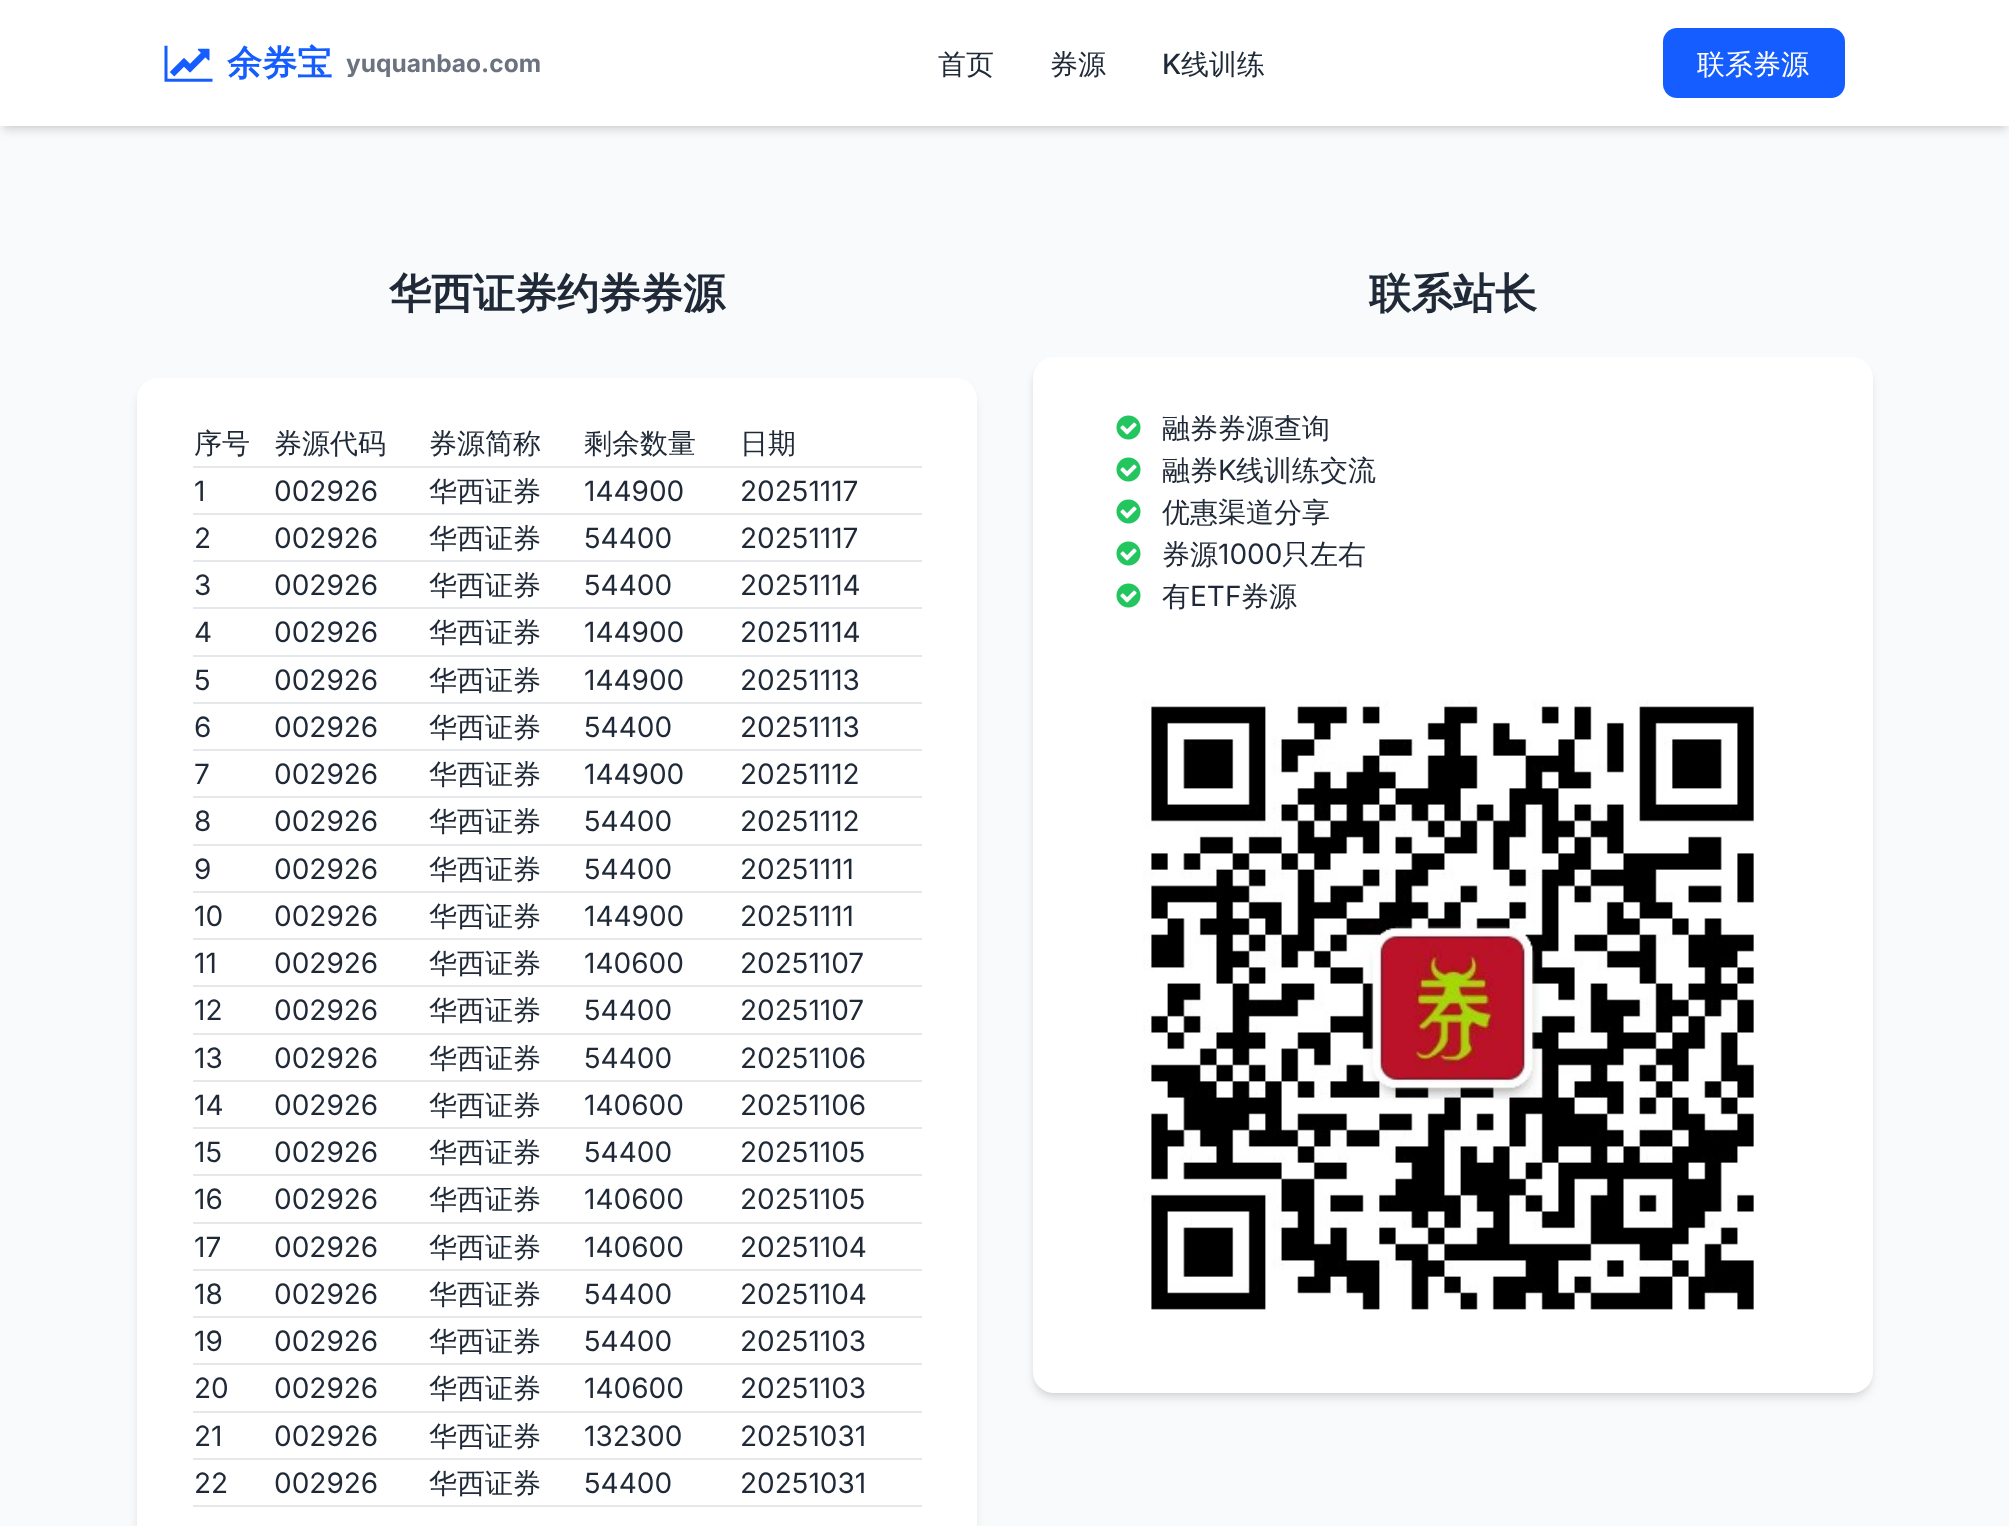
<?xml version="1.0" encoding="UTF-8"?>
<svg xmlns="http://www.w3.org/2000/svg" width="2009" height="1526">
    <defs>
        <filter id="blur1" x="-50%" y="-200%" width="200%" height="500%"><feGaussianBlur stdDeviation="3.5"/></filter>
        <filter id="blur2" x="-50%" y="-200%" width="200%" height="500%"><feGaussianBlur stdDeviation="5"/></filter>
    </defs>
    <rect width="100%" height="100%" fill="#F9FAFB"/>
    <rect x="4" y="7" width="2002" height="119" fill="#000000" fill-opacity="0.1" filter="url(#blur1)"/>
    <rect x="2" y="9" width="2005" height="122" fill="#000000" fill-opacity="0.1" filter="url(#blur2)"/>
    <rect x="0" y="0" width="2009" height="126" fill="#FFFFFF"/>
    <image x="164" y="45" width="49" height="37" href="img_01.png"/>
    <text x="227" y="75" font-family="WenQuanYi Zen Hei" font-size="35" font-weight="700" fill="#165DFF">余券宝</text>
    <text x="346" y="72" font-family="Inter" font-size="24.5" font-weight="700" fill="#6B7280">yuquanbao.com</text>
    <text x="938" y="74" font-family="WenQuanYi Zen Hei" font-size="28" font-weight="500" fill="#1F2937">首页</text>
    <text x="1050" y="74" font-family="WenQuanYi Zen Hei" font-size="28" font-weight="500" fill="#1F2937">券源</text>
    <text x="1162" y="74" font-family="Inter" font-size="28" font-weight="500" fill="#1F2937">K</text>
    <text x="1181" y="74" font-family="WenQuanYi Zen Hei" font-size="28" font-weight="500" fill="#1F2937">线训练</text>
    <rect x="1663" y="28" width="182" height="70" rx="14" fill="#165DFF"/>
    <text x="1697" y="74" font-family="WenQuanYi Zen Hei" font-size="28" font-weight="500" fill="#FFFFFF">联系券源</text>
    <text x="389" y="308" font-family="WenQuanYi Zen Hei" font-size="42" font-weight="700" fill="#1F2937">华西证券约券券源</text>
    <rect x="138" y="387" width="837" height="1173" rx="19" fill="#000000" fill-opacity="0.1" filter="url(#blur2)"/>
    <rect x="137" y="378" width="840" height="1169" rx="21" fill="#FFFFFF"/>
    <rect x="193" y="466" width="729" height="2" fill="#E5E7EB"/>
    <text x="194" y="453" font-family="WenQuanYi Zen Hei" font-size="28" font-weight="500" fill="#1F2937">序号</text>
    <text x="274" y="453" font-family="WenQuanYi Zen Hei" font-size="28" font-weight="500" fill="#1F2937">券源代码</text>
    <text x="429" y="453" font-family="WenQuanYi Zen Hei" font-size="28" font-weight="500" fill="#1F2937">券源简称</text>
    <text x="584" y="453" font-family="WenQuanYi Zen Hei" font-size="28" font-weight="500" fill="#1F2937">剩余数量</text>
    <text x="740" y="453" font-family="WenQuanYi Zen Hei" font-size="28" font-weight="500" fill="#1F2937">日期</text>
    <rect x="193" y="513" width="729" height="2" fill="#E5E7EB"/>
    <text x="194" y="501" font-family="Inter" font-size="28" fill="#1F2937">1</text>
    <text x="274" y="501" font-family="Inter" font-size="28" fill="#1F2937">002926</text>
    <text x="429" y="501" font-family="WenQuanYi Zen Hei" font-size="28" font-weight="500" fill="#1F2937">华西证券</text>
    <text x="584" y="501" font-family="Inter" font-size="28" fill="#1F2937">144900</text>
    <text x="740" y="501" font-family="Inter" font-size="28" fill="#1F2937">20251117</text>
    <rect x="193" y="560" width="729" height="2" fill="#E5E7EB"/>
    <text x="194" y="548" font-family="Inter" font-size="28" fill="#1F2937">2</text>
    <text x="274" y="548" font-family="Inter" font-size="28" fill="#1F2937">002926</text>
    <text x="429" y="548" font-family="WenQuanYi Zen Hei" font-size="28" font-weight="500" fill="#1F2937">华西证券</text>
    <text x="584" y="548" font-family="Inter" font-size="28" fill="#1F2937">54400</text>
    <text x="740" y="548" font-family="Inter" font-size="28" fill="#1F2937">20251117</text>
    <rect x="193" y="607" width="729" height="2" fill="#E5E7EB"/>
    <text x="194" y="595" font-family="Inter" font-size="28" fill="#1F2937">3</text>
    <text x="274" y="595" font-family="Inter" font-size="28" fill="#1F2937">002926</text>
    <text x="429" y="595" font-family="WenQuanYi Zen Hei" font-size="28" font-weight="500" fill="#1F2937">华西证券</text>
    <text x="584" y="595" font-family="Inter" font-size="28" fill="#1F2937">54400</text>
    <text x="740" y="595" font-family="Inter" font-size="28" fill="#1F2937">20251114</text>
    <rect x="193" y="655" width="729" height="2" fill="#E5E7EB"/>
    <text x="194" y="642" font-family="Inter" font-size="28" fill="#1F2937">4</text>
    <text x="274" y="642" font-family="Inter" font-size="28" fill="#1F2937">002926</text>
    <text x="429" y="642" font-family="WenQuanYi Zen Hei" font-size="28" font-weight="500" fill="#1F2937">华西证券</text>
    <text x="584" y="642" font-family="Inter" font-size="28" fill="#1F2937">144900</text>
    <text x="740" y="642" font-family="Inter" font-size="28" fill="#1F2937">20251114</text>
    <rect x="193" y="702" width="729" height="2" fill="#E5E7EB"/>
    <text x="194" y="690" font-family="Inter" font-size="28" fill="#1F2937">5</text>
    <text x="274" y="690" font-family="Inter" font-size="28" fill="#1F2937">002926</text>
    <text x="429" y="690" font-family="WenQuanYi Zen Hei" font-size="28" font-weight="500" fill="#1F2937">华西证券</text>
    <text x="584" y="690" font-family="Inter" font-size="28" fill="#1F2937">144900</text>
    <text x="740" y="690" font-family="Inter" font-size="28" fill="#1F2937">20251113</text>
    <rect x="193" y="749" width="729" height="2" fill="#E5E7EB"/>
    <text x="194" y="737" font-family="Inter" font-size="28" fill="#1F2937">6</text>
    <text x="274" y="737" font-family="Inter" font-size="28" fill="#1F2937">002926</text>
    <text x="429" y="737" font-family="WenQuanYi Zen Hei" font-size="28" font-weight="500" fill="#1F2937">华西证券</text>
    <text x="584" y="737" font-family="Inter" font-size="28" fill="#1F2937">54400</text>
    <text x="740" y="737" font-family="Inter" font-size="28" fill="#1F2937">20251113</text>
    <rect x="193" y="796" width="729" height="2" fill="#E5E7EB"/>
    <text x="194" y="784" font-family="Inter" font-size="28" fill="#1F2937">7</text>
    <text x="274" y="784" font-family="Inter" font-size="28" fill="#1F2937">002926</text>
    <text x="429" y="784" font-family="WenQuanYi Zen Hei" font-size="28" font-weight="500" fill="#1F2937">华西证券</text>
    <text x="584" y="784" font-family="Inter" font-size="28" fill="#1F2937">144900</text>
    <text x="740" y="784" font-family="Inter" font-size="28" fill="#1F2937">20251112</text>
    <rect x="193" y="844" width="729" height="2" fill="#E5E7EB"/>
    <text x="194" y="831" font-family="Inter" font-size="28" fill="#1F2937">8</text>
    <text x="274" y="831" font-family="Inter" font-size="28" fill="#1F2937">002926</text>
    <text x="429" y="831" font-family="WenQuanYi Zen Hei" font-size="28" font-weight="500" fill="#1F2937">华西证券</text>
    <text x="584" y="831" font-family="Inter" font-size="28" fill="#1F2937">54400</text>
    <text x="740" y="831" font-family="Inter" font-size="28" fill="#1F2937">20251112</text>
    <rect x="193" y="891" width="729" height="2" fill="#E5E7EB"/>
    <text x="194" y="879" font-family="Inter" font-size="28" fill="#1F2937">9</text>
    <text x="274" y="879" font-family="Inter" font-size="28" fill="#1F2937">002926</text>
    <text x="429" y="879" font-family="WenQuanYi Zen Hei" font-size="28" font-weight="500" fill="#1F2937">华西证券</text>
    <text x="584" y="879" font-family="Inter" font-size="28" fill="#1F2937">54400</text>
    <text x="740" y="879" font-family="Inter" font-size="28" fill="#1F2937">20251111</text>
    <rect x="193" y="938" width="729" height="2" fill="#E5E7EB"/>
    <text x="194" y="926" font-family="Inter" font-size="28" fill="#1F2937">10</text>
    <text x="274" y="926" font-family="Inter" font-size="28" fill="#1F2937">002926</text>
    <text x="429" y="926" font-family="WenQuanYi Zen Hei" font-size="28" font-weight="500" fill="#1F2937">华西证券</text>
    <text x="584" y="926" font-family="Inter" font-size="28" fill="#1F2937">144900</text>
    <text x="740" y="926" font-family="Inter" font-size="28" fill="#1F2937">20251111</text>
    <rect x="193" y="985" width="729" height="2" fill="#E5E7EB"/>
    <text x="194" y="973" font-family="Inter" font-size="28" fill="#1F2937">11</text>
    <text x="274" y="973" font-family="Inter" font-size="28" fill="#1F2937">002926</text>
    <text x="429" y="973" font-family="WenQuanYi Zen Hei" font-size="28" font-weight="500" fill="#1F2937">华西证券</text>
    <text x="584" y="973" font-family="Inter" font-size="28" fill="#1F2937">140600</text>
    <text x="740" y="973" font-family="Inter" font-size="28" fill="#1F2937">20251107</text>
    <rect x="193" y="1033" width="729" height="2" fill="#E5E7EB"/>
    <text x="194" y="1020" font-family="Inter" font-size="28" fill="#1F2937">12</text>
    <text x="274" y="1020" font-family="Inter" font-size="28" fill="#1F2937">002926</text>
    <text x="429" y="1020" font-family="WenQuanYi Zen Hei" font-size="28" font-weight="500" fill="#1F2937">华西证券</text>
    <text x="584" y="1020" font-family="Inter" font-size="28" fill="#1F2937">54400</text>
    <text x="740" y="1020" font-family="Inter" font-size="28" fill="#1F2937">20251107</text>
    <rect x="193" y="1080" width="729" height="2" fill="#E5E7EB"/>
    <text x="194" y="1068" font-family="Inter" font-size="28" fill="#1F2937">13</text>
    <text x="274" y="1068" font-family="Inter" font-size="28" fill="#1F2937">002926</text>
    <text x="429" y="1068" font-family="WenQuanYi Zen Hei" font-size="28" font-weight="500" fill="#1F2937">华西证券</text>
    <text x="584" y="1068" font-family="Inter" font-size="28" fill="#1F2937">54400</text>
    <text x="740" y="1068" font-family="Inter" font-size="28" fill="#1F2937">20251106</text>
    <rect x="193" y="1127" width="729" height="2" fill="#E5E7EB"/>
    <text x="194" y="1115" font-family="Inter" font-size="28" fill="#1F2937">14</text>
    <text x="274" y="1115" font-family="Inter" font-size="28" fill="#1F2937">002926</text>
    <text x="429" y="1115" font-family="WenQuanYi Zen Hei" font-size="28" font-weight="500" fill="#1F2937">华西证券</text>
    <text x="584" y="1115" font-family="Inter" font-size="28" fill="#1F2937">140600</text>
    <text x="740" y="1115" font-family="Inter" font-size="28" fill="#1F2937">20251106</text>
    <rect x="193" y="1174" width="729" height="2" fill="#E5E7EB"/>
    <text x="194" y="1162" font-family="Inter" font-size="28" fill="#1F2937">15</text>
    <text x="274" y="1162" font-family="Inter" font-size="28" fill="#1F2937">002926</text>
    <text x="429" y="1162" font-family="WenQuanYi Zen Hei" font-size="28" font-weight="500" fill="#1F2937">华西证券</text>
    <text x="584" y="1162" font-family="Inter" font-size="28" fill="#1F2937">54400</text>
    <text x="740" y="1162" font-family="Inter" font-size="28" fill="#1F2937">20251105</text>
    <rect x="193" y="1222" width="729" height="2" fill="#E5E7EB"/>
    <text x="194" y="1209" font-family="Inter" font-size="28" fill="#1F2937">16</text>
    <text x="274" y="1209" font-family="Inter" font-size="28" fill="#1F2937">002926</text>
    <text x="429" y="1209" font-family="WenQuanYi Zen Hei" font-size="28" font-weight="500" fill="#1F2937">华西证券</text>
    <text x="584" y="1209" font-family="Inter" font-size="28" fill="#1F2937">140600</text>
    <text x="740" y="1209" font-family="Inter" font-size="28" fill="#1F2937">20251105</text>
    <rect x="193" y="1269" width="729" height="2" fill="#E5E7EB"/>
    <text x="194" y="1257" font-family="Inter" font-size="28" fill="#1F2937">17</text>
    <text x="274" y="1257" font-family="Inter" font-size="28" fill="#1F2937">002926</text>
    <text x="429" y="1257" font-family="WenQuanYi Zen Hei" font-size="28" font-weight="500" fill="#1F2937">华西证券</text>
    <text x="584" y="1257" font-family="Inter" font-size="28" fill="#1F2937">140600</text>
    <text x="740" y="1257" font-family="Inter" font-size="28" fill="#1F2937">20251104</text>
    <rect x="193" y="1316" width="729" height="2" fill="#E5E7EB"/>
    <text x="194" y="1304" font-family="Inter" font-size="28" fill="#1F2937">18</text>
    <text x="274" y="1304" font-family="Inter" font-size="28" fill="#1F2937">002926</text>
    <text x="429" y="1304" font-family="WenQuanYi Zen Hei" font-size="28" font-weight="500" fill="#1F2937">华西证券</text>
    <text x="584" y="1304" font-family="Inter" font-size="28" fill="#1F2937">54400</text>
    <text x="740" y="1304" font-family="Inter" font-size="28" fill="#1F2937">20251104</text>
    <rect x="193" y="1363" width="729" height="2" fill="#E5E7EB"/>
    <text x="194" y="1351" font-family="Inter" font-size="28" fill="#1F2937">19</text>
    <text x="274" y="1351" font-family="Inter" font-size="28" fill="#1F2937">002926</text>
    <text x="429" y="1351" font-family="WenQuanYi Zen Hei" font-size="28" font-weight="500" fill="#1F2937">华西证券</text>
    <text x="584" y="1351" font-family="Inter" font-size="28" fill="#1F2937">54400</text>
    <text x="740" y="1351" font-family="Inter" font-size="28" fill="#1F2937">20251103</text>
    <rect x="193" y="1411" width="729" height="2" fill="#E5E7EB"/>
    <text x="194" y="1398" font-family="Inter" font-size="28" fill="#1F2937">20</text>
    <text x="274" y="1398" font-family="Inter" font-size="28" fill="#1F2937">002926</text>
    <text x="429" y="1398" font-family="WenQuanYi Zen Hei" font-size="28" font-weight="500" fill="#1F2937">华西证券</text>
    <text x="584" y="1398" font-family="Inter" font-size="28" fill="#1F2937">140600</text>
    <text x="740" y="1398" font-family="Inter" font-size="28" fill="#1F2937">20251103</text>
    <rect x="193" y="1458" width="729" height="2" fill="#E5E7EB"/>
    <text x="194" y="1446" font-family="Inter" font-size="28" fill="#1F2937">21</text>
    <text x="274" y="1446" font-family="Inter" font-size="28" fill="#1F2937">002926</text>
    <text x="429" y="1446" font-family="WenQuanYi Zen Hei" font-size="28" font-weight="500" fill="#1F2937">华西证券</text>
    <text x="584" y="1446" font-family="Inter" font-size="28" fill="#1F2937">132300</text>
    <text x="740" y="1446" font-family="Inter" font-size="28" fill="#1F2937">20251031</text>
    <rect x="193" y="1505" width="729" height="2" fill="#E5E7EB"/>
    <text x="194" y="1493" font-family="Inter" font-size="28" fill="#1F2937">22</text>
    <text x="274" y="1493" font-family="Inter" font-size="28" fill="#1F2937">002926</text>
    <text x="429" y="1493" font-family="WenQuanYi Zen Hei" font-size="28" font-weight="500" fill="#1F2937">华西证券</text>
    <text x="584" y="1493" font-family="Inter" font-size="28" fill="#1F2937">54400</text>
    <text x="740" y="1493" font-family="Inter" font-size="28" fill="#1F2937">20251031</text>
    <text x="1369" y="308" font-family="WenQuanYi Zen Hei" font-size="42" font-weight="700" fill="#1F2937">联系站长</text>
    <rect x="1036" y="364" width="833" height="1029" rx="18" fill="#000000" fill-opacity="0.1" filter="url(#blur1)"/>
    <rect x="1034" y="366" width="837" height="1032" rx="19" fill="#000000" fill-opacity="0.1" filter="url(#blur2)"/>
    <rect x="1033" y="357" width="840" height="1036" rx="21" fill="#FFFFFF"/>
    <image x="1116" y="415" width="25" height="25" href="img_02.png"/>
    <text x="1162" y="438" font-family="WenQuanYi Zen Hei" font-size="28" font-weight="500" fill="#1F2937">融券券源查询</text>
    <image x="1116" y="457" width="25" height="25" href="img_02.png"/>
    <text x="1162" y="480" font-family="WenQuanYi Zen Hei" font-size="28" font-weight="500" fill="#1F2937">融券</text>
    <text x="1218" y="480" font-family="Inter" font-size="28" fill="#1F2937">K</text>
    <text x="1236" y="480" font-family="WenQuanYi Zen Hei" font-size="28" font-weight="500" fill="#1F2937">线训练交流</text>
    <image x="1116" y="499" width="25" height="25" href="img_02.png"/>
    <text x="1162" y="522" font-family="WenQuanYi Zen Hei" font-size="28" font-weight="500" fill="#1F2937">优惠渠道分享</text>
    <image x="1116" y="541" width="25" height="25" href="img_02.png"/>
    <text x="1162" y="564" font-family="WenQuanYi Zen Hei" font-size="28" font-weight="500" fill="#1F2937">券源</text>
    <text x="1218" y="564" font-family="Inter" font-size="28" fill="#1F2937">1000</text>
    <text x="1282" y="564" font-family="WenQuanYi Zen Hei" font-size="28" font-weight="500" fill="#1F2937">只左右</text>
    <image x="1116" y="583" width="25" height="25" href="img_02.png"/>
    <text x="1162" y="606" font-family="WenQuanYi Zen Hei" font-size="28" font-weight="500" fill="#1F2937">有</text>
    <text x="1190" y="606" font-family="Inter" font-size="28" fill="#1F2937">ETF</text>
    <text x="1241" y="606" font-family="WenQuanYi Zen Hei" font-size="28" font-weight="500" fill="#1F2937">券源</text>
    <image x="1143" y="699" width="611" height="611" href="img_03.png"/>
</svg>
